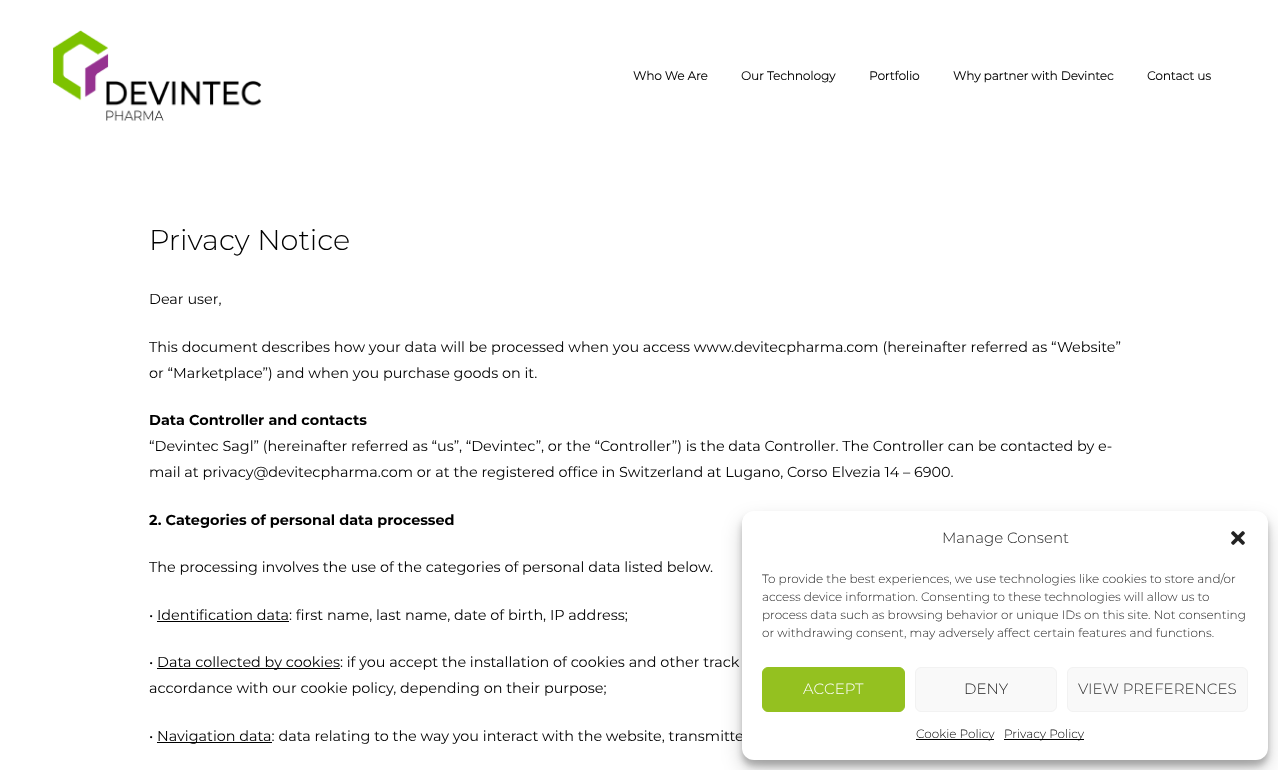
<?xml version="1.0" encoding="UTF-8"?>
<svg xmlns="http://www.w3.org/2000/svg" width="1278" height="770">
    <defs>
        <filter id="blur1" x="-50%" y="-200%" width="200%" height="500%"><feGaussianBlur stdDeviation="3"/></filter>
        <filter id="blur2" x="-50%" y="-200%" width="200%" height="500%"><feGaussianBlur stdDeviation="10"/></filter>
    </defs>
    <rect width="100%" height="100%" fill="#FFFFFF"/>
    <image x="53" y="30" width="209" height="91" href="img_01.png"/>
    <text x="633" y="80" font-family="'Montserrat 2'" font-size="12" font-weight="700" fill="#000000">Who We Are</text>
    <text x="741" y="80" font-family="'Montserrat 2'" font-size="12" font-weight="700" fill="#000000">Our Technology</text>
    <text x="869" y="80" font-family="'Montserrat 2'" font-size="12" font-weight="700" fill="#000000">Portfolio</text>
    <text x="953" y="80" font-family="'Montserrat 2'" font-size="12" font-weight="700" fill="#000000">Why partner with Devintec</text>
    <text x="1147" y="80" font-family="'Montserrat 2'" font-size="12" font-weight="700" fill="#000000">Contact us</text>
    <text x="149" y="250" font-family="Montserrat" font-size="28.75" font-weight="300" fill="#000000">Privacy Notice</text>
    <text x="149" y="304" font-family="Montserrat" font-size="14.4" font-weight="100" fill="#000000">Dear user,</text>
    <text font-family="Montserrat" font-size="14.4" font-weight="100" fill="#000000">
        <tspan x="149" y="352">This document describes how your data will be processed when you access www.devitecpharma.com (hereinafter referred as “Website”</tspan>
        <tspan x="149" y="378">or “Marketplace”) and when you purchase goods on it.</tspan>
    </text>
    <text x="149" y="425" font-family="Montserrat" font-size="14.4" font-weight="700" fill="#000000">Data Controller and contacts</text>
    <text font-family="Montserrat" font-size="14.4" font-weight="100" fill="#000000">
        <tspan x="149" y="451">“Devintec Sagl” (hereinafter referred as “us”, “Devintec”, or the “Controller”) is the data Controller. The Controller can be contacted by e-</tspan>
        <tspan x="149" y="477">mail at privacy@devitecpharma.com or at the registered office in Switzerland at Lugano, Corso Elvezia 14 – 6900.</tspan>
    </text>
    <text x="149" y="525" font-family="Montserrat" font-size="14.4" font-weight="700" fill="#000000">2. Categories of personal data processed</text>
    <text x="149" y="572" font-family="Montserrat" font-size="14.4" font-weight="100" fill="#000000">The processing involves the use of the categories of personal data listed below.</text>
    <text x="149" y="620" font-family="Montserrat" font-size="14.4" font-weight="100" fill="#000000">• Identification data: first name, last name, date of birth, IP address;</text>
    <rect x="157" y="621" width="132" height="1" fill="#000000"/>
    <text x="149" y="667" font-family="Montserrat" font-size="14.4" font-weight="100" fill="#000000">•</text>
    <rect x="157" y="668" width="183" height="1" fill="#000000"/>
    <text x="157" y="667" font-family="Montserrat" font-size="14.4" font-weight="100" fill="#000000">Data collected by cookies: if you accept the installation of cookies and other track</text>
    <text x="149" y="693" font-family="Montserrat" font-size="14.4" font-weight="100" fill="#000000">accordance with our cookie policy, depending on their purpose;</text>
    <text x="149" y="741" font-family="Montserrat" font-size="14.4" font-weight="100" fill="#000000">•</text>
    <rect x="157" y="742" width="115" height="1" fill="#000000"/>
    <text x="157" y="741" font-family="Montserrat" font-size="14.4" font-weight="100" fill="#000000">Navigation data: data relating to the way you interact with the website, transmitte</text>
    <rect x="742" y="517" width="526" height="249" rx="12" fill="#000000" fill-opacity="0.23" filter="url(#blur1)"/>
    <rect x="742" y="521" width="526" height="249" rx="12" fill="#000000" fill-opacity="0.19" filter="url(#blur2)"/>
    <rect x="742" y="511" width="526" height="249" rx="12" fill="#FFFFFF"/>
    <text x="942" y="543" font-family="Montserrat" font-size="15" font-weight="300" fill="#222222">Manage Consent</text>
    <image x="1231" y="531" width="14" height="14" href="img_02.png"/>
    <text font-family="Montserrat" font-size="12" font-weight="300" fill="#222222">
        <tspan x="762" y="583">To provide the best experiences, we use technologies like cookies to store and/or</tspan>
        <tspan x="762" y="601">access device information. Consenting to these technologies will allow us to</tspan>
        <tspan x="762" y="619">process data such as browsing behavior or unique IDs on this site. Not consenting</tspan>
        <tspan x="762" y="637">or withdrawing consent, may adversely affect certain features and functions.</tspan>
    </text>
    <rect x="762.5" y="667.5" width="142" height="44" rx="5.5" fill="#94C120" stroke="#94C120"/>
    <text x="803" y="694" font-family="Montserrat" font-size="15" font-weight="300" fill="#FFFFFF">ACCEPT</text>
    <rect x="915.5" y="667.5" width="141" height="44" rx="5.5" fill="#F9F9F9" stroke="#F2F2F2"/>
    <text x="964" y="694" font-family="Montserrat" font-size="15" font-weight="300" fill="#222222">DENY</text>
    <rect x="1067.5" y="667.5" width="180" height="44" rx="5.5" fill="#F9F9F9" stroke="#F2F2F2"/>
    <text x="1078" y="694" font-family="Montserrat" font-size="15" font-weight="300" fill="#333333">VIEW PREFERENCES</text>
    <rect x="916" y="739" width="78" height="1" fill="#000000"/>
    <text x="916" y="738" font-family="Montserrat" font-size="12" font-weight="300" fill="#000000">Cookie Policy</text>
    <rect x="1004" y="739" width="80" height="1" fill="#000000"/>
    <text x="1004" y="738" font-family="Montserrat" font-size="12" font-weight="300" fill="#000000">Privacy Policy</text>
</svg>
